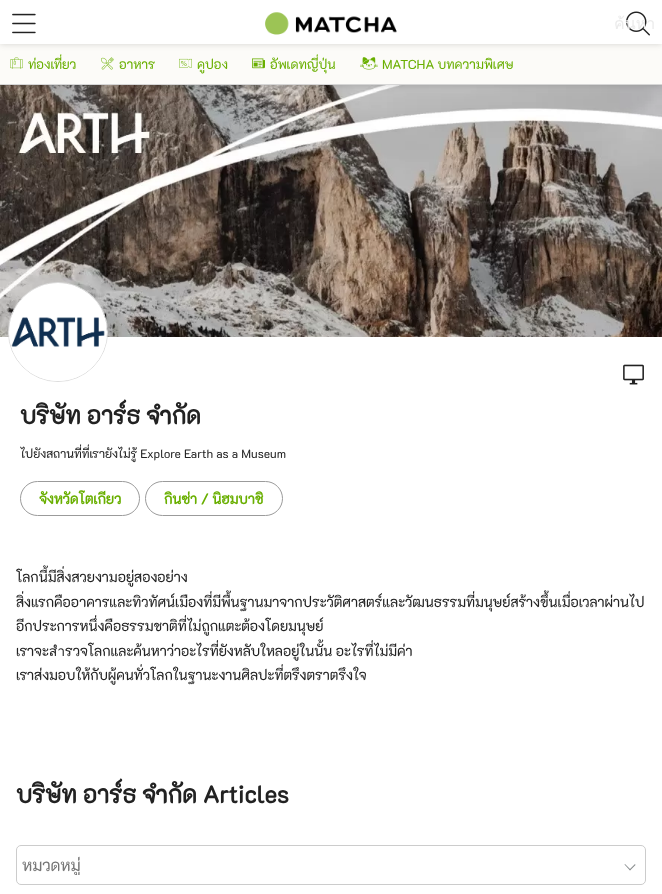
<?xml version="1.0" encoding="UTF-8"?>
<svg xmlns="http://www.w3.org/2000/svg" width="662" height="894">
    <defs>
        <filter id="blur1" x="-50%" y="-200%" width="200%" height="500%"><feGaussianBlur stdDeviation="3"/></filter>
        <clipPath id="clip1"><rect x="614" y="11" width="48" height="25"/></clipPath>
        <clipPath id="clip2"><rect x="22" y="854" width="603" height="21"/></clipPath>
    </defs>
    <rect width="100%" height="100%" fill="#FFFFFF"/>
    <image x="0" y="85" width="662" height="252" href="img_09.png"/>
    <rect x="0" y="44" width="662" height="41" fill="#000000" fill-opacity="0.16" filter="url(#blur1)"/>
    <rect x="0" y="44" width="662" height="40" fill="#FCFBF8"/>
    <rect x="0" y="0" width="662" height="44" fill="#000000" fill-opacity="0.16" filter="url(#blur1)"/>
    <rect x="0" y="0" width="662" height="44" fill="#FFFFFF"/>
    <image x="12" y="13" width="24" height="21" href="img_01.png"/>
    <image x="265" y="12" width="132" height="23" href="img_02.png"/>
    <image x="626" y="11" width="24" height="25" href="img_03.png"/>
    <g clip-path="url(#clip1)">
        <text x="614" y="29" font-family="Loma" font-size="16" fill="#EBEBEB">ค้นหา</text>
    </g>
    <rect x="0" y="84" width="662" height="1" fill="#D6D6D6"/>
    <image x="10" y="57" width="13" height="12" href="img_04.png"/>
    <text x="28" y="69" font-family="'K2D'" font-size="13" fill="#69AF00">ท่องเที่ยว</text>
    <image x="101" y="57" width="13" height="13" href="img_05.png"/>
    <text x="119" y="69" font-family="'K2D'" font-size="13" fill="#69AF00">อาหาร</text>
    <image x="179" y="58" width="13" height="10" href="img_06.png"/>
    <text x="197" y="69" font-family="'K2D'" font-size="13" fill="#69AF00">คูปอง</text>
    <image x="252" y="58" width="13" height="11" href="img_07.png"/>
    <text x="270" y="69" font-family="'K2D'" font-size="13" fill="#69AF00">อัพเดทญี่ปุ่น</text>
    <image x="360" y="57" width="18" height="13" href="img_08.png"/>
    <text x="382" y="69" font-family="'K2D'" font-size="13" fill="#69AF00">MATCHA บทความพิเศษ</text>
    <circle cx="58" cy="332" r="49.5" fill="none" stroke="#DDDDDD"/>
    <image x="9" y="283" width="98" height="98" href="img_10.png"/>
    <image x="623" y="364" width="21" height="21" href="img_11.png"/>
    <text x="20" y="424" font-family="'K2D'" font-size="24" font-weight="700" fill="#222222">บริษัท อาร์ธ จำกัด</text>
    <text x="20" y="458" font-family="'K2D'" font-size="12" fill="#222222">ไปยังสถานที่ที่เรายังไม่รู้ Explore Earth as a Museum</text>
    <rect x="20.5" y="481.5" width="119" height="34" rx="17" fill="none" stroke="#9B9B9B"/>
    <text x="39" y="504" font-family="'K2D'" font-size="14" font-weight="700" fill="#69AF00">จังหวัดโตเกียว</text>
    <rect x="145.5" y="481.5" width="137" height="34" rx="17" fill="none" stroke="#9B9B9B"/>
    <text x="164" y="504" font-family="'K2D'" font-size="14" font-weight="700" fill="#69AF00">กินซ่า / นิฮมบาชิ</text>
    <text font-family="'K2D'" font-size="14" fill="#222222">
        <tspan x="16" y="582">โลกนี้มีสิ่งสวยงามอยู่สองอย่าง</tspan>
        <tspan x="16" y="607">สิ่งแรกคืออาคารและทิวทัศน์เมืองที่มีพื้นฐานมาจากประวัติศาสตร์และวัฒนธรรมที่มนุษย์สร้างขึ้นเมื่อเวลาผ่านไป</tspan>
        <tspan x="16" y="631">อีกประการหนึ่งคือธรรมชาติที่ไม่ถูกแตะต้องโดยมนุษย์</tspan>
        <tspan x="16" y="656">เราจะสำรวจโลกและค้นหาว่าอะไรที่ยังหลับใหลอยู่ในนั้น อะไรที่ไม่มีค่า</tspan>
        <tspan x="16" y="680">เราส่งมอบให้กับผู้คนทั่วโลกในฐานะงานศิลปะที่ตรึงตราตรึงใจ</tspan>
    </text>
    <text x="16" y="803" font-family="'K2D'" font-size="24" font-weight="700" fill="#222222">บริษัท อาร์ธ จำกัด Articles</text>
    <rect x="16.5" y="845.5" width="629" height="39" rx="4.5" fill="none" stroke="#CCCCCC"/>
    <g clip-path="url(#clip2)">
        <text x="22" y="871" font-family="'K2D'" font-size="16" fill="#757575">หมวดหมู่</text>
    </g>
    <path d="M 635 864 L 635.5 865 L 630 870.5 L 629.5 869.5 Z" fill="#888C8E"/>
    <path d="M 625 864 L 630.5 869.5 L 630 870.5 L 624.5 864.5 Z" fill="#888C8E"/>
</svg>
